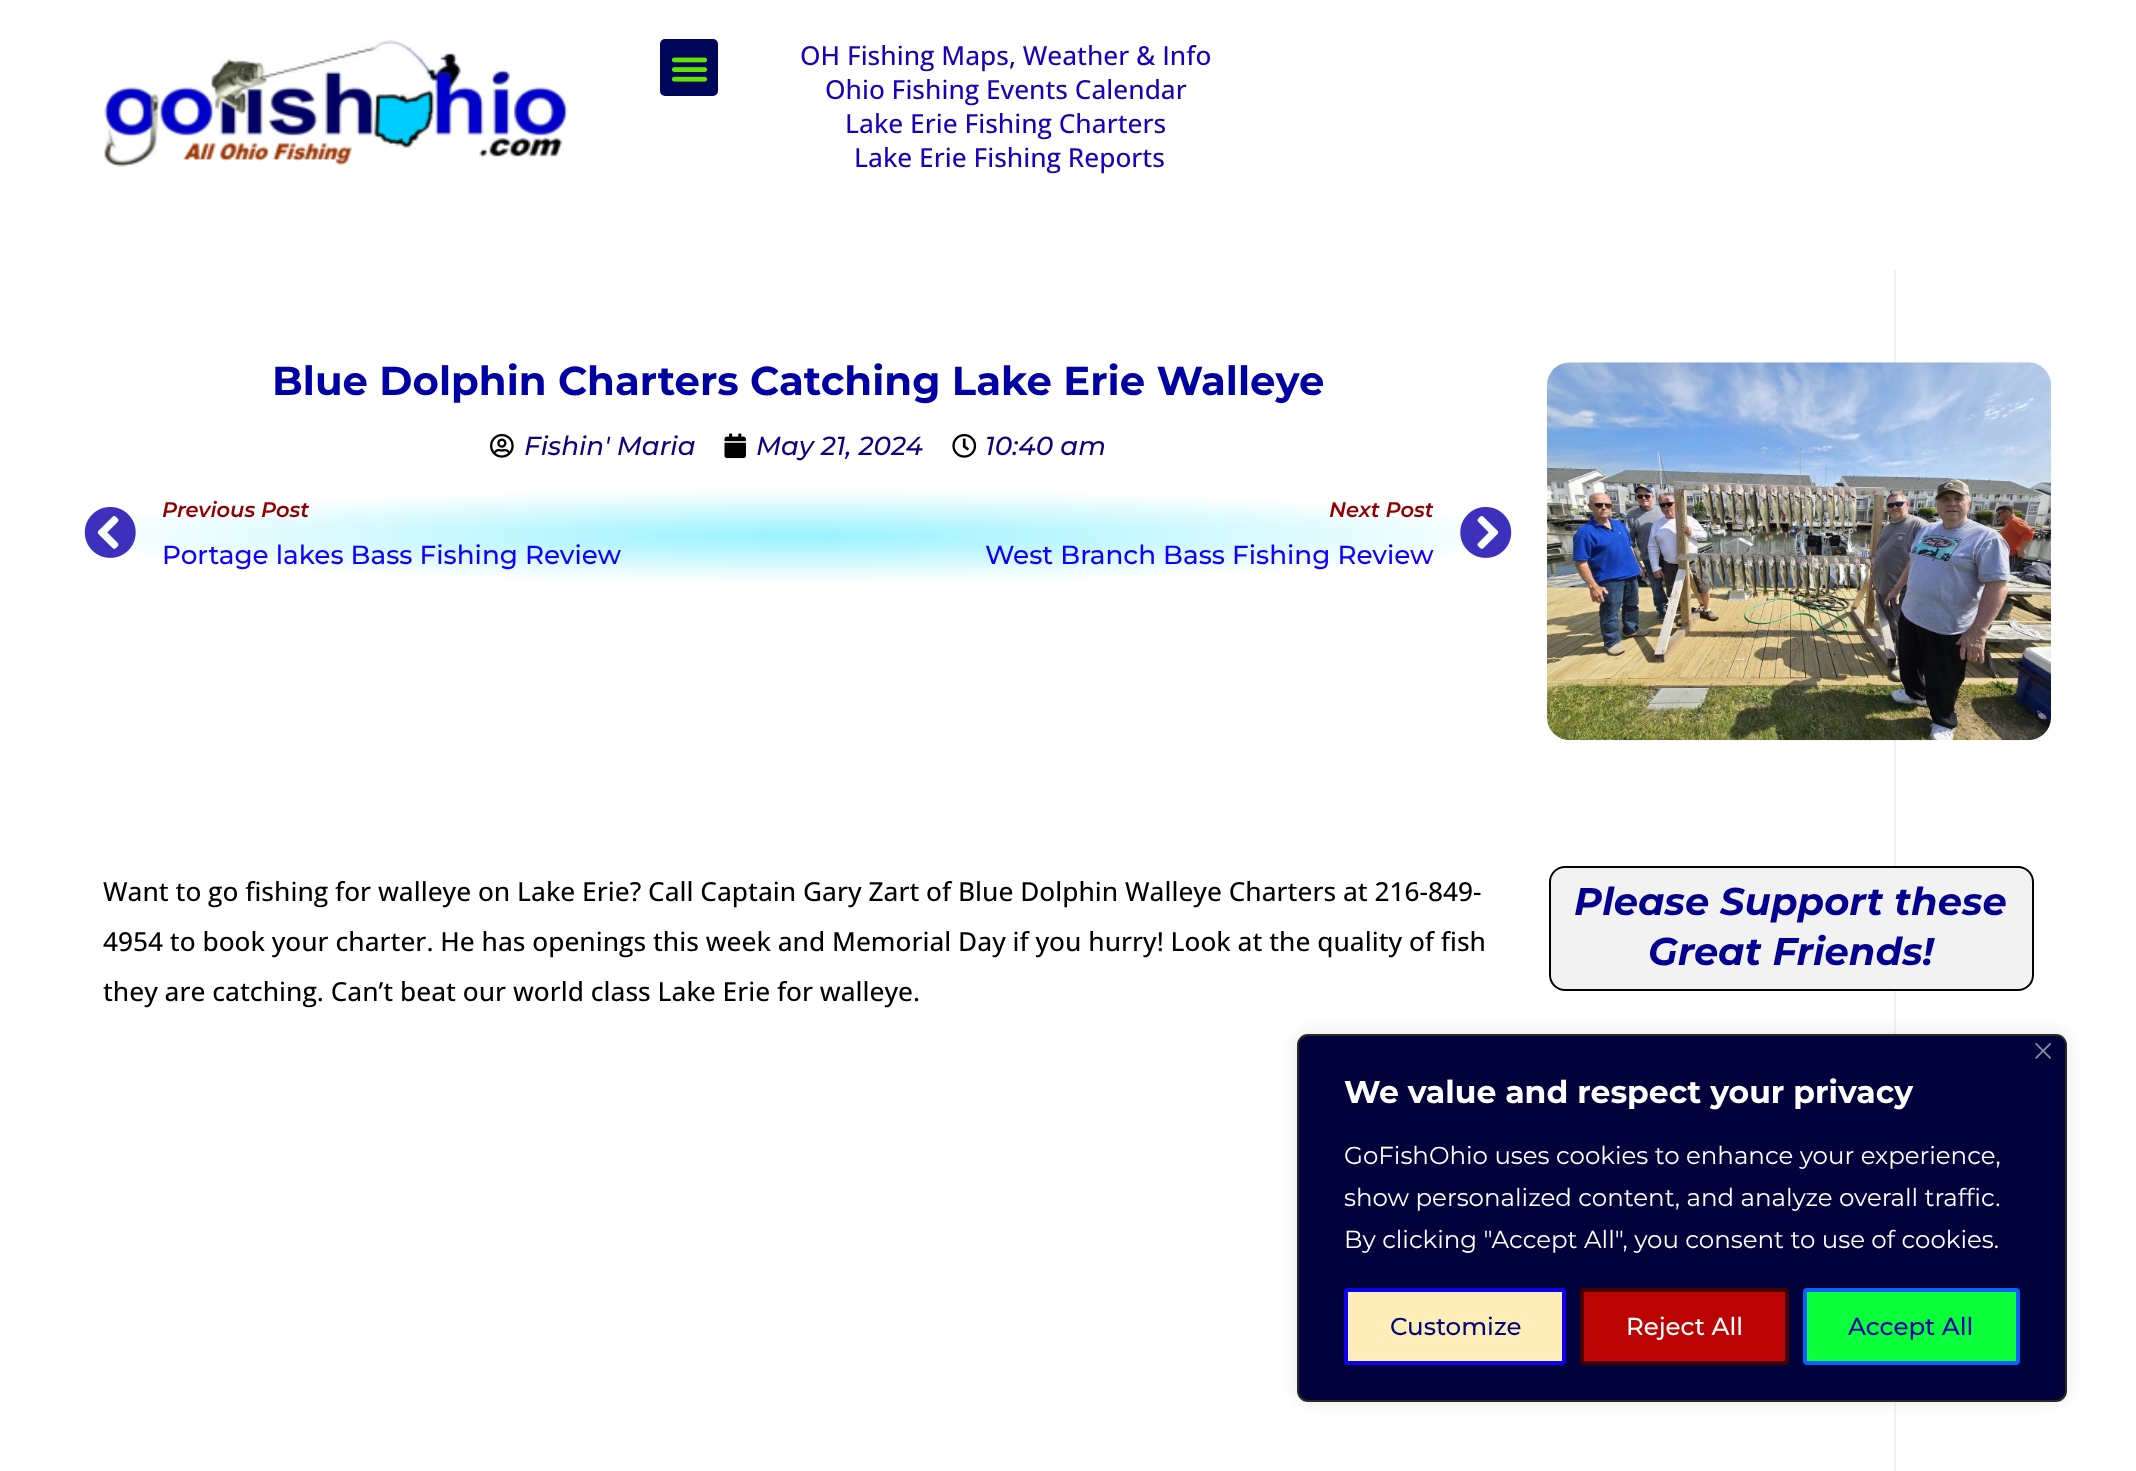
<?xml version="1.0" encoding="UTF-8"?>
<svg xmlns="http://www.w3.org/2000/svg" width="2136" height="1471">
    <defs>
        <radialGradient id="g1" gradientUnits="userSpaceOnUse" cx="0" cy="0" r="1" gradientTransform="matrix(1010 0 0 64 798 536)"><stop offset="0" stop-color="#98F2FF"/><stop offset="0.74" stop-color="#FFFFFF"/></radialGradient>
        <clipPath id="clip1"><rect x="985" y="490" width="448" height="40"/></clipPath>
        <filter id="blur1" x="-50%" y="-200%" width="200%" height="500%"><feGaussianBlur stdDeviation="9"/></filter>
    </defs>
    <rect width="100%" height="100%" fill="#FFFFFF"/>
    <image x="103" y="39" width="466" height="128" href="img_01.png"/>
    <rect x="660" y="39" width="58" height="57" rx="5" fill="#00075A"/>
    <image x="671" y="57" width="37" height="25" href="img_02.png"/>
    <text x="800" y="65" font-family="Open Sans" font-size="26.25" font-weight="500" fill="#1900BC">OH Fishing Maps, Weather &amp; Info</text>
    <text x="825" y="99" font-family="Open Sans" font-size="26.25" font-weight="500" fill="#1900BC">Ohio Fishing Events Calendar</text>
    <text x="845" y="133" font-family="Open Sans" font-size="26.25" font-weight="500" fill="#1900BC">Lake Erie Fishing Charters</text>
    <text x="854" y="167" font-family="Open Sans" font-size="26.25" font-weight="500" fill="#1900BC">Lake Erie Fishing Reports</text>
    <rect x="1894" y="270" width="2" height="1201" fill="#F1F1F1"/>
    <text x="272" y="395" font-family="Montserrat" font-size="40.25" font-weight="700" fill="#0001A4">Blue Dolphin Charters Catching Lake Erie Walleye</text>
    <image x="490" y="433" width="24" height="25" href="img_03.png"/>
    <text x="524" y="455" font-family="Montserrat" font-size="26.25" font-weight="500" font-style="italic" fill="#100181">Fishin' Maria</text>
    <image x="724" y="433" width="22" height="26" href="img_04.png"/>
    <text x="756" y="455" font-family="Montserrat" font-size="26.25" font-weight="500" font-style="italic" fill="#100181">May 21, 2024</text>
    <image x="952" y="433" width="25" height="25" href="img_05.png"/>
    <text x="985" y="455" font-family="Montserrat" font-size="26.25" font-weight="500" font-style="italic" fill="#100181">10:40 am</text>
    <rect x="84" y="490" width="1428" height="91" fill="url(#g1)"/>
    <image x="84" y="507" width="52" height="51" href="img_06.png"/>
    <text x="162" y="517" font-family="Montserrat" font-size="21" font-weight="600" font-style="italic" fill="#900000">Previous Post</text>
    <text x="162" y="564" font-family="Montserrat" font-size="26.25" font-weight="500" fill="#1200FD">Portage lakes Bass Fishing Review</text>
    <g clip-path="url(#clip1)">
        <text x="1329" y="517" font-family="Montserrat" font-size="21" font-weight="600" font-style="italic" fill="#900000">Next Post</text>
    </g>
    <text x="985" y="564" font-family="Montserrat" font-size="26.25" font-weight="500" fill="#1200FD">West Branch Bass Fishing Review</text>
    <image x="1460" y="507" width="52" height="51" href="img_07.png"/>
    <image x="1547" y="362" width="504" height="379" href="img_08.png"/>
    <text font-family="Open Sans" font-size="26.25" font-weight="500" fill="#000000">
        <tspan x="103" y="901">Want to go fishing for walleye on Lake Erie? Call Captain Gary Zart of Blue Dolphin Walleye Charters at 216-849-</tspan>
        <tspan x="103" y="951">4954 to book your charter. He has openings this week and Memorial Day if you hurry! Look at the quality of fish</tspan>
        <tspan x="103" y="1001">they are catching. Can’t beat our world class Lake Erie for walleye.</tspan>
    </text>
    <rect x="1550" y="867" width="483" height="123" rx="15" fill="#F2F2F2" stroke="#000000" stroke-width="2"/>
    <text x="1574" y="915" font-family="Montserrat" font-size="38.5" font-weight="700" font-style="italic" fill="#04008F">Please Support these</text>
    <text x="1648" y="965" font-family="Montserrat" font-size="38.5" font-weight="700" font-style="italic" fill="#04008F">Great Friends!</text>
    <rect x="1297" y="1033" width="770" height="367" rx="11" fill="#ACABAB" fill-opacity="0.3" filter="url(#blur1)"/>
    <rect x="1298" y="1035" width="768" height="366" rx="10" fill="#01023C" stroke="#2A2A2A" stroke-width="2"/>
    <image x="2035" y="1043" width="16" height="16" href="img_09.png"/>
    <text x="1344" y="1103" font-family="Montserrat" font-size="31.5" font-weight="700" fill="#FFFFFF">We value and respect your privacy</text>
    <text font-family="Montserrat" font-size="24.5" fill="#FFFFFF">
        <tspan x="1344" y="1164">GoFishOhio uses cookies to enhance your experience,</tspan>
        <tspan x="1344" y="1206">show personalized content, and analyze overall traffic.</tspan>
        <tspan x="1344" y="1248">By clicking "Accept All", you consent to use of cookies.</tspan>
    </text>
    <rect x="1346" y="1290" width="218" height="73" rx="2" fill="#FFEEB9" stroke="#0E02EE" stroke-width="4"/>
    <text x="1390" y="1335" font-family="Montserrat" font-size="24.5" font-weight="500" fill="#020977">Customize</text>
    <rect x="1582" y="1290" width="205" height="73" rx="2" fill="#BB0303" stroke="#450101" stroke-width="4"/>
    <text x="1626" y="1335" font-family="Montserrat" font-size="24.5" font-weight="500" fill="#FFFFFF">Reject All</text>
    <rect x="1805" y="1290" width="213" height="73" rx="2" fill="#0AFF3A" stroke="#0663FA" stroke-width="4"/>
    <text x="1848" y="1335" font-family="Montserrat" font-size="24.5" font-weight="500" fill="#0B02AC">Accept All</text>
</svg>
